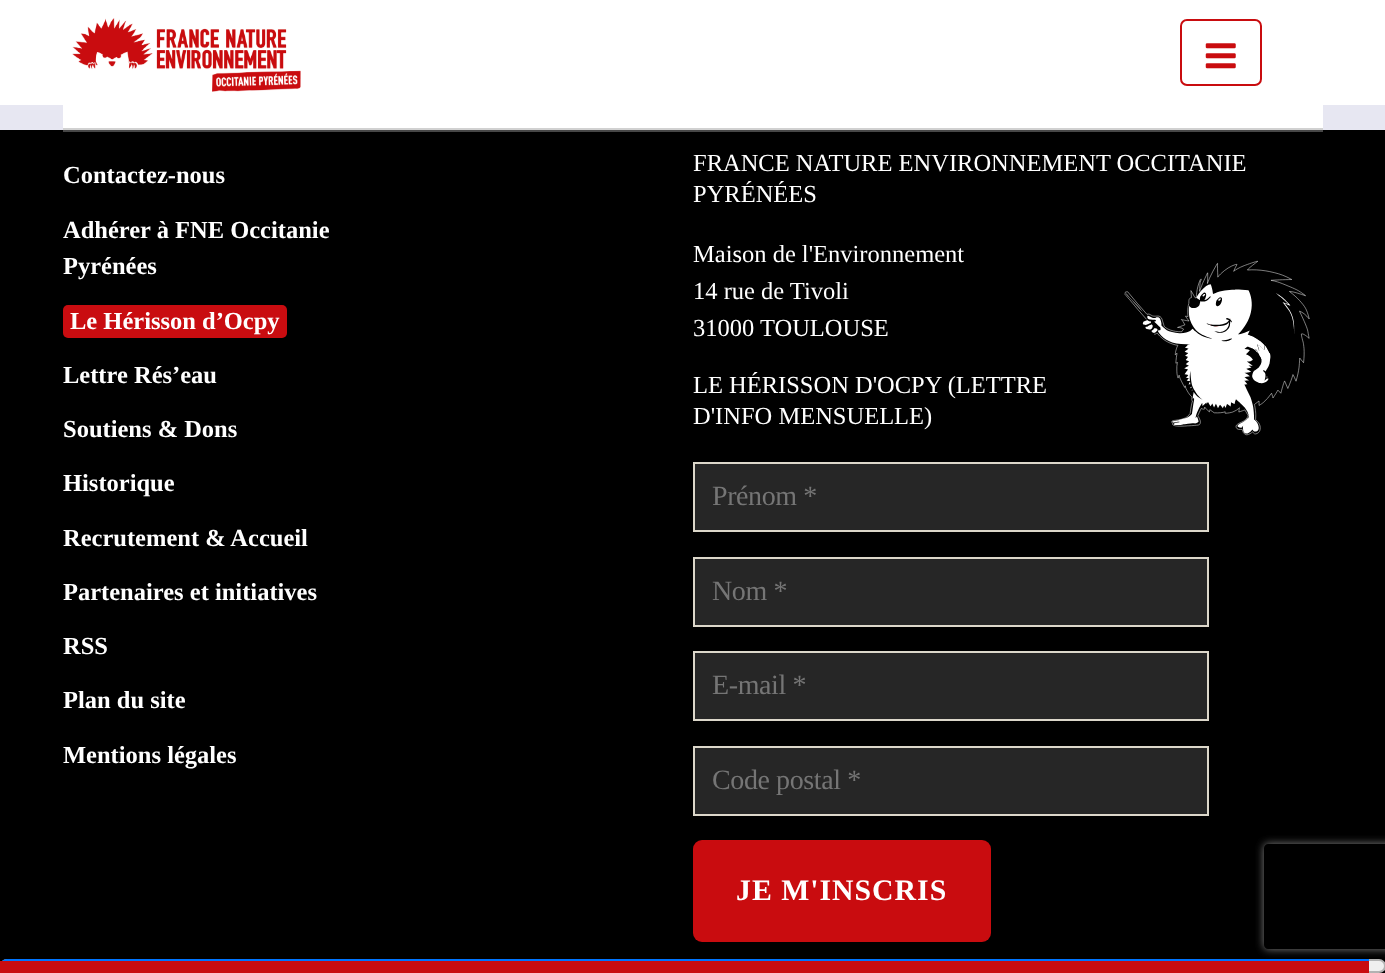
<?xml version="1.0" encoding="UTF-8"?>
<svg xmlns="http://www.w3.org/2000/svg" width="1385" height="973">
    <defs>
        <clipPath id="clip1"><path d="M 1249 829 H 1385 V 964 H 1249 Z M 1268 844 H 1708 C 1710 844 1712 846 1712 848 V 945 C 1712 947 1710 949 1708 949 H 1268 C 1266 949 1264 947 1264 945 V 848 C 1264 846 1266 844 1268 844 Z" clip-rule="evenodd"/></clipPath>
        <filter id="blur1" x="-50%" y="-200%" width="200%" height="500%"><feGaussianBlur stdDeviation="4.5"/></filter>
    </defs>
    <rect width="100%" height="100%" fill="#E7E7F2"/>
    <rect x="0" y="0" width="1385" height="105" fill="#FFFFFF"/>
    <image x="72" y="18" width="229" height="74" href="img_01.png"/>
    <rect x="1181" y="20" width="80" height="65" rx="6" fill="none" stroke="#C90C0F" stroke-width="2"/>
    <image x="1205" y="43" width="31" height="26" href="img_02.png"/>
    <rect x="63" y="105" width="1260" height="23" fill="#FFFFFF"/>
    <rect x="63" y="128" width="1260" height="2" fill="#D1D1D1"/>
    <rect x="0" y="130" width="1385" height="843" fill="#000000"/>
    <rect x="63" y="130" width="1260" height="2" fill="#474747"/>
    <text x="63" y="183" font-family="Liberation Serif" font-size="24.5" font-weight="700" fill="#FFFFFF">Contactez-nous</text>
    <text font-family="Liberation Serif" font-size="24.5" font-weight="700" fill="#FFFFFF">
        <tspan x="63" y="238">Adhérer à FNE Occitanie</tspan>
        <tspan x="63" y="274">Pyrénées</tspan>
    </text>
    <rect x="63" y="305" width="224" height="33" rx="5" fill="#C90C10"/>
    <text x="70" y="329" font-family="Liberation Serif" font-size="24.5" font-weight="700" fill="#FFFFFF">Le Hérisson d’Ocpy</text>
    <text x="63" y="383" font-family="Liberation Serif" font-size="24.5" font-weight="700" fill="#FFFFFF">Lettre Rés’eau</text>
    <text x="63" y="437" font-family="Liberation Serif" font-size="24.5" font-weight="700" fill="#FFFFFF">Soutiens &amp; Dons</text>
    <text x="63" y="491" font-family="Liberation Serif" font-size="24.5" font-weight="700" fill="#FFFFFF">Historique</text>
    <text x="63" y="546" font-family="Liberation Serif" font-size="24.5" font-weight="700" fill="#FFFFFF">Recrutement &amp; Accueil</text>
    <text x="63" y="600" font-family="Liberation Serif" font-size="24.5" font-weight="700" fill="#FFFFFF">Partenaires et initiatives</text>
    <text x="63" y="654" font-family="Liberation Serif" font-size="24.5" font-weight="700" fill="#FFFFFF">RSS</text>
    <text x="63" y="708" font-family="Liberation Serif" font-size="24.5" font-weight="700" fill="#FFFFFF">Plan du site</text>
    <text x="63" y="763" font-family="Liberation Serif" font-size="24.5" font-weight="700" fill="#FFFFFF">Mentions légales</text>
    <text font-family="Liberation Serif" font-size="24.5" fill="#FFFFFF">
        <tspan x="693" y="171">FRANCE NATURE ENVIRONNEMENT OCCITANIE</tspan>
        <tspan x="693" y="202">PYRÉNÉES</tspan>
    </text>
    <text font-family="Liberation Serif" font-size="24.5" fill="#FFFFFF">
        <tspan x="693" y="262">Maison de l'Environnement</tspan>
        <tspan x="693" y="299">14 rue de Tivoli</tspan>
        <tspan x="693" y="336">31000 TOULOUSE</tspan>
    </text>
    <image x="1124" y="260" width="186" height="176" href="img_03.png"/>
    <text font-family="Liberation Serif" font-size="24.5" fill="#FFFFFF">
        <tspan x="693" y="393">LE HÉRISSON D'OCPY (LETTRE</tspan>
        <tspan x="693" y="424">D'INFO MENSUELLE)</tspan>
    </text>
    <rect x="694" y="463" width="514" height="68" fill="#262626" stroke="#DCD7CA" stroke-width="2"/>
    <text x="712" y="505" font-family="Liberation Serif" font-size="28" letter-spacing="-0.4" fill="#757575">Prénom *</text>
    <rect x="694" y="558" width="514" height="68" fill="#262626" stroke="#DCD7CA" stroke-width="2"/>
    <text x="712" y="600" font-family="Liberation Serif" font-size="28" letter-spacing="-0.4" fill="#757575">Nom *</text>
    <rect x="694" y="652" width="514" height="68" fill="#262626" stroke="#DCD7CA" stroke-width="2"/>
    <text x="712" y="694" font-family="Liberation Serif" font-size="28" letter-spacing="-0.4" fill="#757575">E-mail *</text>
    <rect x="694" y="747" width="514" height="68" fill="#262626" stroke="#DCD7CA" stroke-width="2"/>
    <text x="712" y="789" font-family="Liberation Serif" font-size="28" letter-spacing="-0.4" fill="#757575">Code postal *</text>
    <rect x="693" y="840" width="298" height="102" rx="9" fill="#C90C0F"/>
    <text x="736" y="900" font-family="Liberation Serif" font-size="29.75" font-weight="700" letter-spacing="1" fill="#FFFFFF">JE M'INSCRIS</text>
    <g clip-path="url(#clip1)">
        <rect x="1264" y="844" width="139" height="105" rx="4" fill="#808080" filter="url(#blur1)"/>
    </g>
    <rect x="1" y="960" width="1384" height="12" rx="6" fill="#EFEFEF" stroke="#B2B2B2" stroke-width="2"/>
    <path d="M 7 959 H 1369 V 973 H 7 C 3 973 0 970 0 966 C 0 962 3 959 7 959 Z" fill="#0075FF"/>
    <rect x="0" y="961" width="1369" height="12" fill="#C90C10"/>
</svg>
